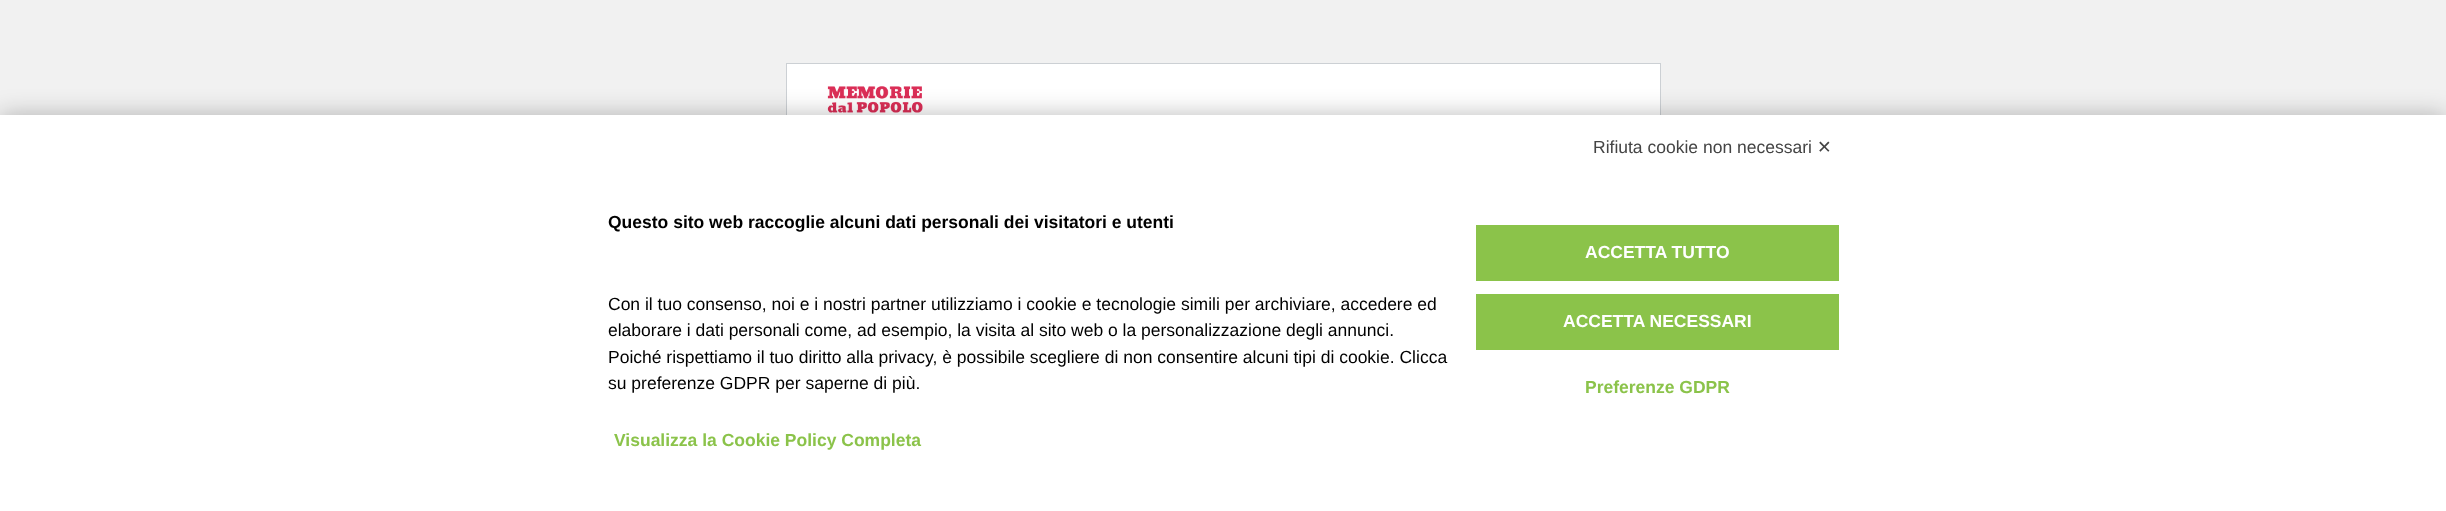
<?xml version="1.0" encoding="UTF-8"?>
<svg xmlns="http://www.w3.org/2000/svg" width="2446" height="511">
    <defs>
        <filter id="blur1" x="-50%" y="-200%" width="200%" height="500%"><feGaussianBlur stdDeviation="12.5"/></filter>
    </defs>
    <rect width="100%" height="100%" fill="#F1F1F1"/>
    <rect x="787" y="64" width="873" height="51" fill="#FFFFFF"/>
    <rect x="786.5" y="63.5" width="874" height="211" fill="none" stroke="#CCD0D4"/>
    <image x="827" y="86" width="96" height="27" href="img_01.png"/>
    <rect x="0" y="115" width="2446" height="396" fill="#000000" fill-opacity="0.27" filter="url(#blur1)"/>
    <rect x="0" y="115" width="2446" height="396" fill="#FFFFFF"/>
    <text x="1593" y="153" font-family="Liberation Sans" font-size="17.5" fill="#444444">Rifiuta cookie non necessari</text>
    <text x="1817" y="153" font-family="DejaVu Sans" font-size="17.5" fill="#444444">✕</text>
    <text x="608" y="228" font-family="Liberation Sans" font-size="17.5" font-weight="700" fill="#000000">Questo sito web raccoglie alcuni dati personali dei visitatori e utenti</text>
    <text font-family="Liberation Sans" font-size="17.5" fill="#000000">
        <tspan x="608" y="310">Con il tuo consenso, noi e i nostri partner utilizziamo i cookie e tecnologie simili per archiviare, accedere ed</tspan>
        <tspan x="608" y="336">elaborare i dati personali come, ad esempio, la visita al sito web o la personalizzazione degli annunci.</tspan>
        <tspan x="608" y="363">Poiché rispettiamo il tuo diritto alla privacy, è possibile scegliere di non consentire alcuni tipi di cookie. Clicca</tspan>
        <tspan x="608" y="389">su preferenze GDPR per saperne di più.</tspan>
    </text>
    <text x="614" y="446" font-family="Liberation Sans" font-size="17.5" font-weight="700" fill="#8BC34A">Visualizza la Cookie Policy Completa</text>
    <rect x="1476" y="225" width="363" height="56" fill="#8BC34A"/>
    <text x="1585" y="258" font-family="Liberation Sans" font-size="17.5" font-weight="700" fill="#FFFFFF">ACCETTA TUTTO</text>
    <rect x="1476" y="294" width="363" height="56" fill="#8BC34A"/>
    <text x="1563" y="327" font-family="Liberation Sans" font-size="17.5" font-weight="700" fill="#FFFFFF">ACCETTA NECESSARI</text>
    <text x="1585" y="393" font-family="Liberation Sans" font-size="17.5" font-weight="700" fill="#8BC34A">Preferenze GDPR</text>
</svg>
